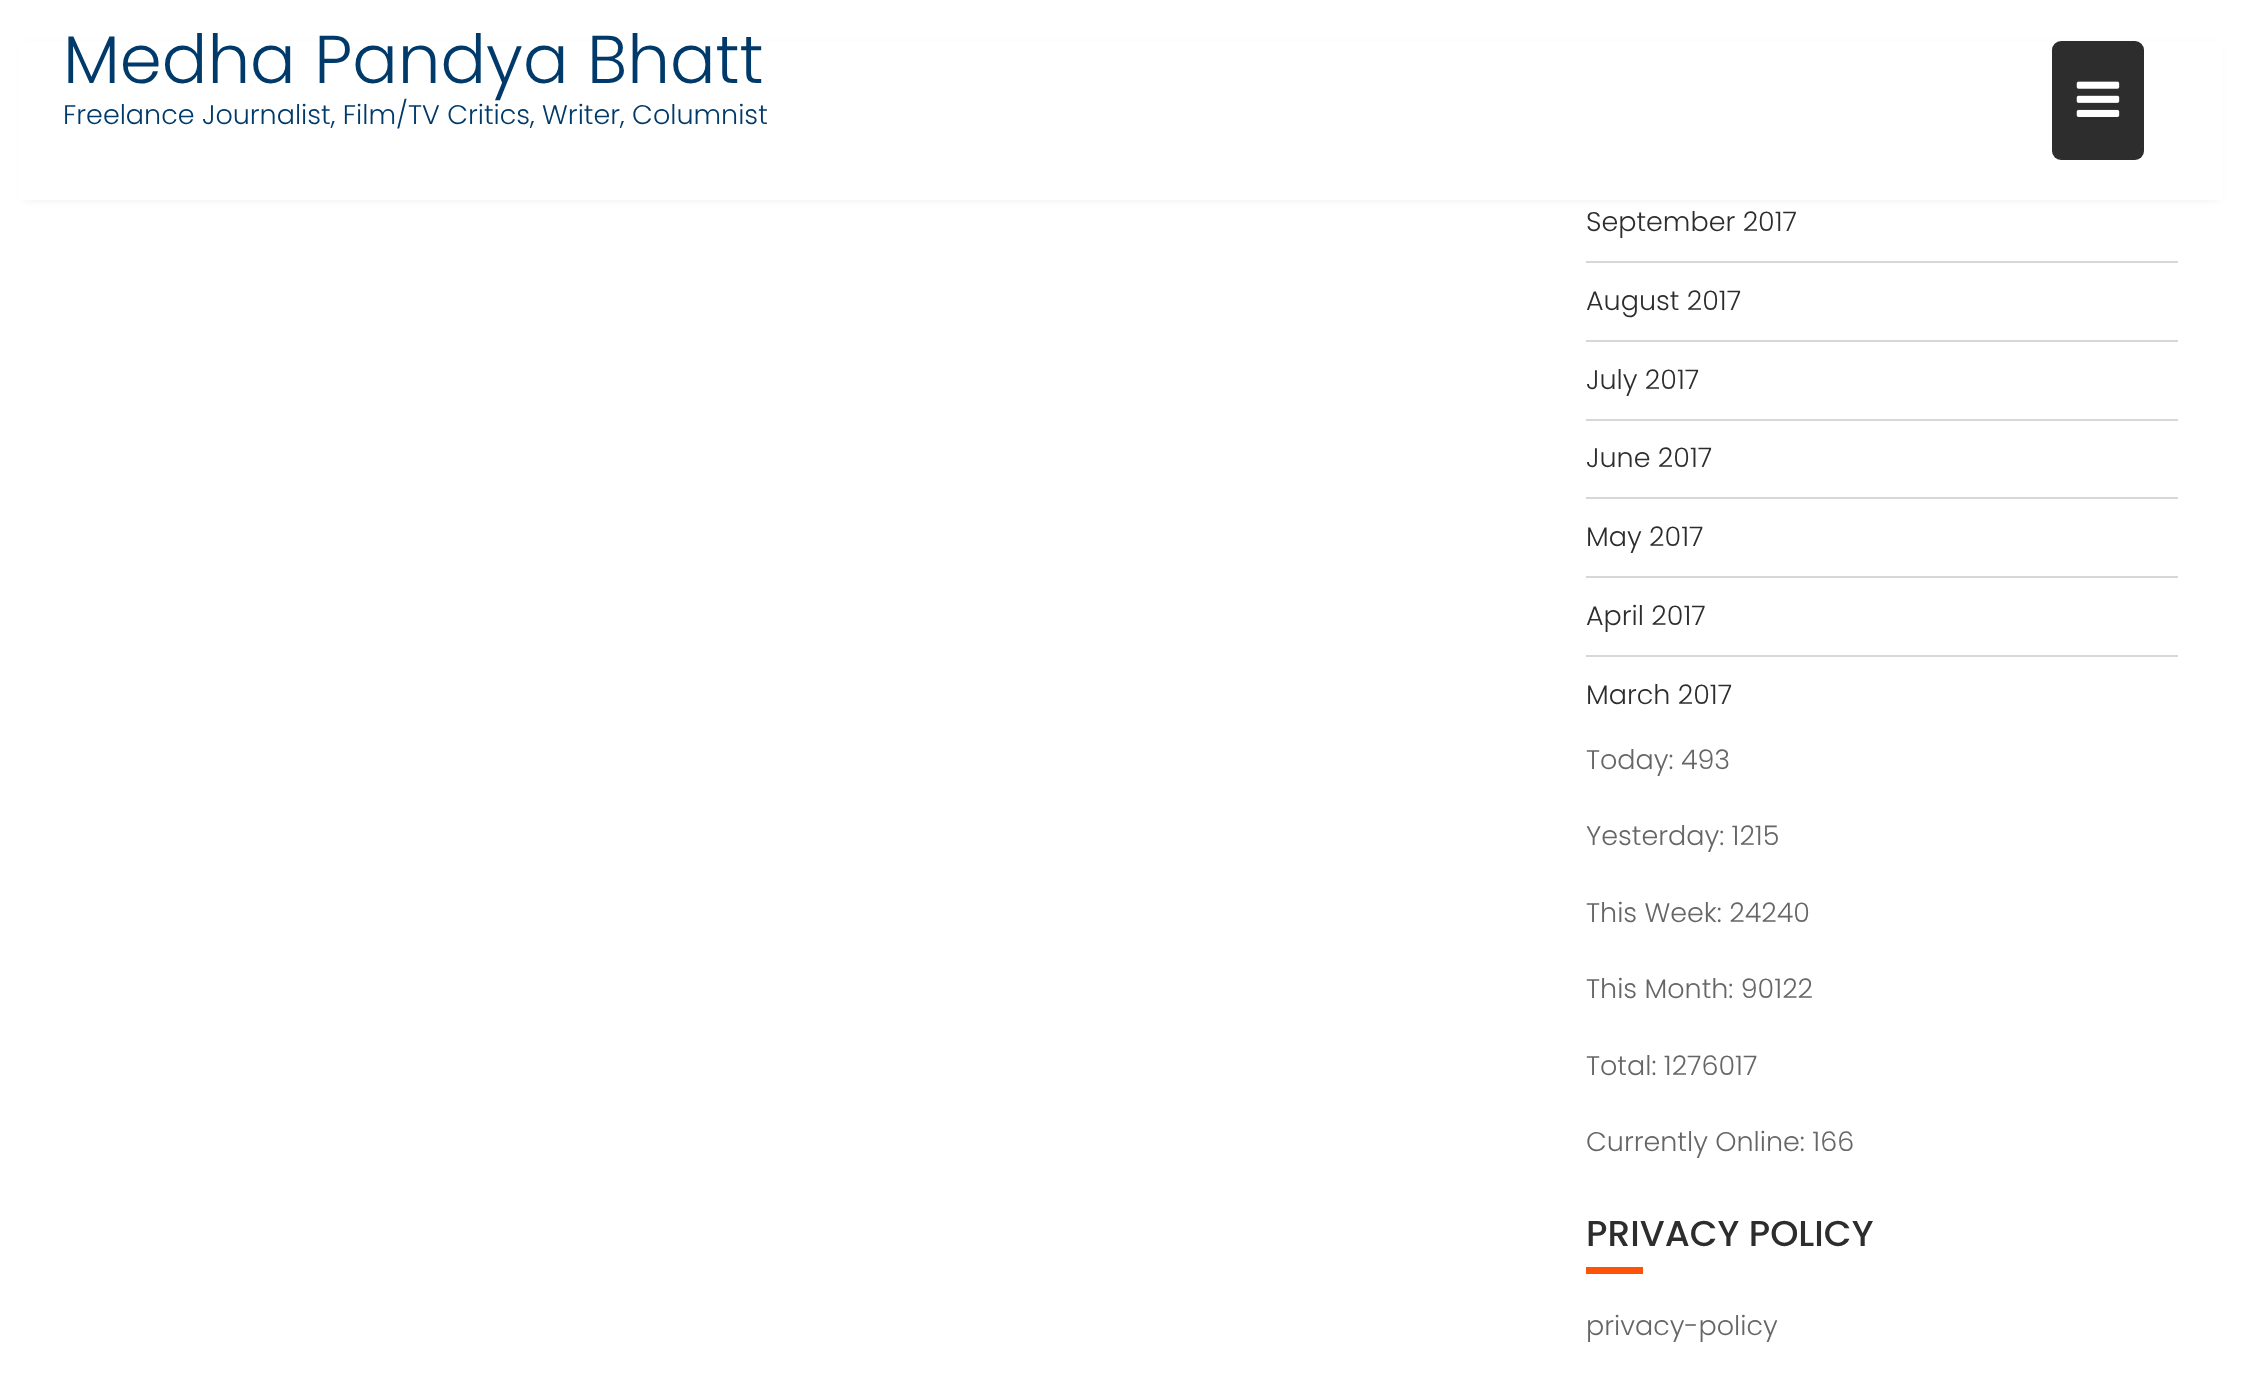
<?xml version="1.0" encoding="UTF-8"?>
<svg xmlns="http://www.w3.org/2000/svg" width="2241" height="1373">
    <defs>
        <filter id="blur1" x="-50%" y="-200%" width="200%" height="500%"><feGaussianBlur stdDeviation="4.5"/></filter>
    </defs>
    <rect width="100%" height="100%" fill="#FFFFFF"/>
    <rect x="23" y="45" width="2196" height="155" fill="#EEEEEE" fill-opacity="0.9" filter="url(#blur1)"/>
    <rect x="19" y="41" width="2204" height="159" fill="#FFFFFF"/>
    <text x="63" y="83" font-family="Poppins" font-size="67.5" font-weight="300" fill="#003A6A">Medha Pandya Bhatt</text>
    <rect x="2052" y="41" width="92" height="119" rx="9" fill="#2D2D2D"/>
    <image x="2076" y="81" width="44" height="36" href="img_01.png"/>
    <text x="63" y="124" font-family="Poppins" font-size="27" font-weight="300" fill="#003A6A">Freelance Journalist, Film/TV Critics, Writer, Columnist</text>
    <text x="1586" y="231" font-family="Poppins" font-size="27" font-weight="300" fill="#2D2D2D">September 2017</text>
    <rect x="1586" y="261" width="592" height="2" fill="#D7D7D7"/>
    <text x="1586" y="310" font-family="Poppins" font-size="27" font-weight="300" fill="#2D2D2D">August 2017</text>
    <rect x="1586" y="340" width="592" height="2" fill="#D7D7D7"/>
    <text x="1586" y="389" font-family="Poppins" font-size="27" font-weight="300" fill="#2D2D2D">July 2017</text>
    <rect x="1586" y="419" width="592" height="2" fill="#D7D7D7"/>
    <text x="1586" y="467" font-family="Poppins" font-size="27" font-weight="300" fill="#2D2D2D">June 2017</text>
    <rect x="1586" y="497" width="592" height="2" fill="#D7D7D7"/>
    <text x="1586" y="546" font-family="Poppins" font-size="27" font-weight="300" fill="#2D2D2D">May 2017</text>
    <rect x="1586" y="576" width="592" height="2" fill="#D7D7D7"/>
    <text x="1586" y="625" font-family="Poppins" font-size="27" font-weight="300" fill="#2D2D2D">April 2017</text>
    <rect x="1586" y="655" width="592" height="2" fill="#D7D7D7"/>
    <text x="1586" y="704" font-family="Poppins" font-size="27" font-weight="300" fill="#2D2D2D">March 2017</text>
    <text x="1586" y="769" font-family="Poppins" font-size="27" font-weight="300" fill="#666666">Today: 493</text>
    <text x="1586" y="845" font-family="Poppins" font-size="27" font-weight="300" fill="#666666">Yesterday: 1215</text>
    <text x="1586" y="922" font-family="Poppins" font-size="27" font-weight="300" fill="#666666">This Week: 24240</text>
    <text x="1586" y="998" font-family="Poppins" font-size="27" font-weight="300" fill="#666666">This Month: 90122</text>
    <text x="1586" y="1075" font-family="Poppins" font-size="27" font-weight="300" fill="#666666">Total: 1276017</text>
    <text x="1586" y="1151" font-family="Poppins" font-size="27" font-weight="300" fill="#666666">Currently Online: 166</text>
    <text x="1586" y="1246" font-family="Poppins" font-size="36" font-weight="500" fill="#2D2D2D">PRIVACY POLICY</text>
    <rect x="1586" y="1267" width="57" height="7" fill="#FD5308"/>
    <text x="1586" y="1335" font-family="Poppins" font-size="27" font-weight="300" fill="#666666">privacy-policy</text>
</svg>
